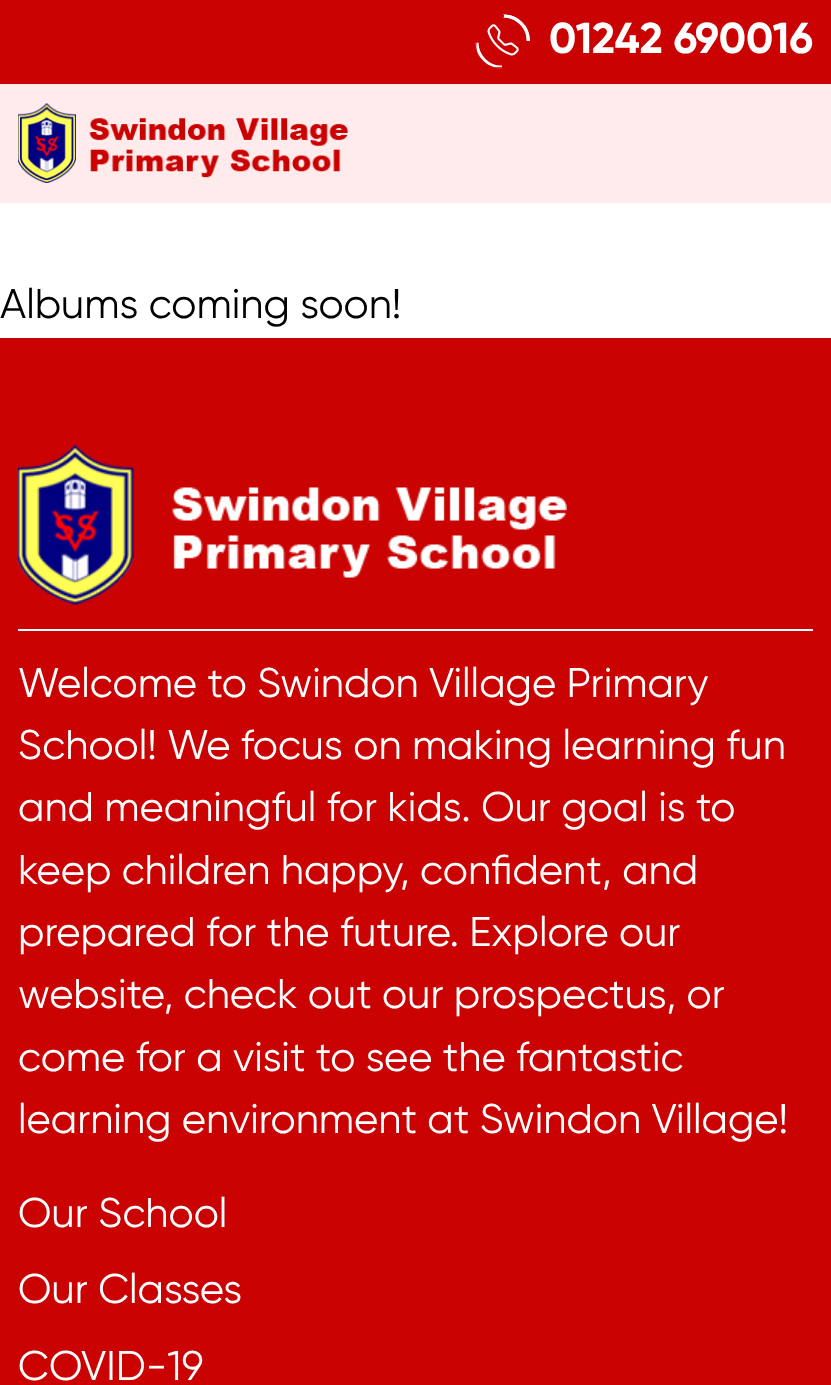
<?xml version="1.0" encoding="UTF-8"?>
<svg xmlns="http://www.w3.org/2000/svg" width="831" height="1385">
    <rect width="100%" height="100%" fill="#FFFFFF"/>
    <rect x="0" y="0" width="831" height="84" fill="#CB0202"/>
    <image x="487" y="24" width="32" height="32" href="img_01.png"/>
    <path d="M 503.5 16 C 517 16 528.5 27.5 528 41" fill="none" stroke="#FFFFFF" stroke-width="3"/>
    <path d="M 528 41 C 528 55 516 67 502 67" fill="none" stroke="#CB0202" stroke-width="3"/>
    <path d="M 502 67 C 488.5 67.5 477 56 477 42.5" fill="none" stroke="#FFFFFF" stroke-width="3"/>
    <path d="M 477 42.5 C 477.5 28.5 489.5 16.5 503.5 16" fill="none" stroke="#CB0202" stroke-width="3"/>
    <path d="M 522 22 C 527.5 27 530 34 530 41 H 527 C 527.5 28 516 17 503.5 17.5 V 14.5 C 510.5 14.5 517 17 522 22 Z" fill="#FFFFFF"/>
    <path d="M 483 61 C 499 77 526 60 527 41 H 530 C 529 63 500 79 483 61 Z" fill="#CB0202"/>
    <path d="M 485 22 C 490 17 497 15 504 15 V 17 C 485 18 468 43 481 59 C 472 48 475 32 485 22 Z M 483 61 H 483 Z" fill="#CB0202" fill-rule="evenodd"/>
    <text x="549" y="53" font-family="Gilroy" font-size="43.25" font-weight="700" fill="#FFFFFF">01242 690016</text>
    <rect x="0" y="84" width="831" height="119" fill="#FFEBEB"/>
    <image x="18" y="103" width="330" height="80" href="img_02.png"/>
    <text x="0" y="318" font-family="Gilroy" font-size="41.5" fill="#000000">Albums coming soon!</text>
    <rect x="0" y="338" width="831" height="1047" fill="#CB0202"/>
    <image x="18" y="445" width="549" height="160" href="img_03.png"/>
    <rect x="18" y="629" width="795" height="2" fill="#FFFFFF"/>
    <text font-family="Gilroy" font-size="41.5" fill="#FFFFFF">
        <tspan x="18" y="697">Welcome to Swindon Village Primary</tspan>
        <tspan x="18" y="759">School! We focus on making learning fun</tspan>
        <tspan x="18" y="821">and meaningful for kids. Our goal is to</tspan>
        <tspan x="18" y="884">keep children happy, confident, and</tspan>
        <tspan x="18" y="946">prepared for the future. Explore our</tspan>
        <tspan x="18" y="1008">website, check out our prospectus, or</tspan>
        <tspan x="18" y="1071">come for a visit to see the fantastic</tspan>
        <tspan x="18" y="1133">learning environment at Swindon Village!</tspan>
    </text>
    <text font-family="Gilroy" font-size="41.5" fill="#FFFFFF">
        <tspan x="18" y="1227">Our School</tspan>
        <tspan x="18" y="1303">Our Classes</tspan>
        <tspan x="18" y="1380">COVID-19</tspan>
    </text>
</svg>
